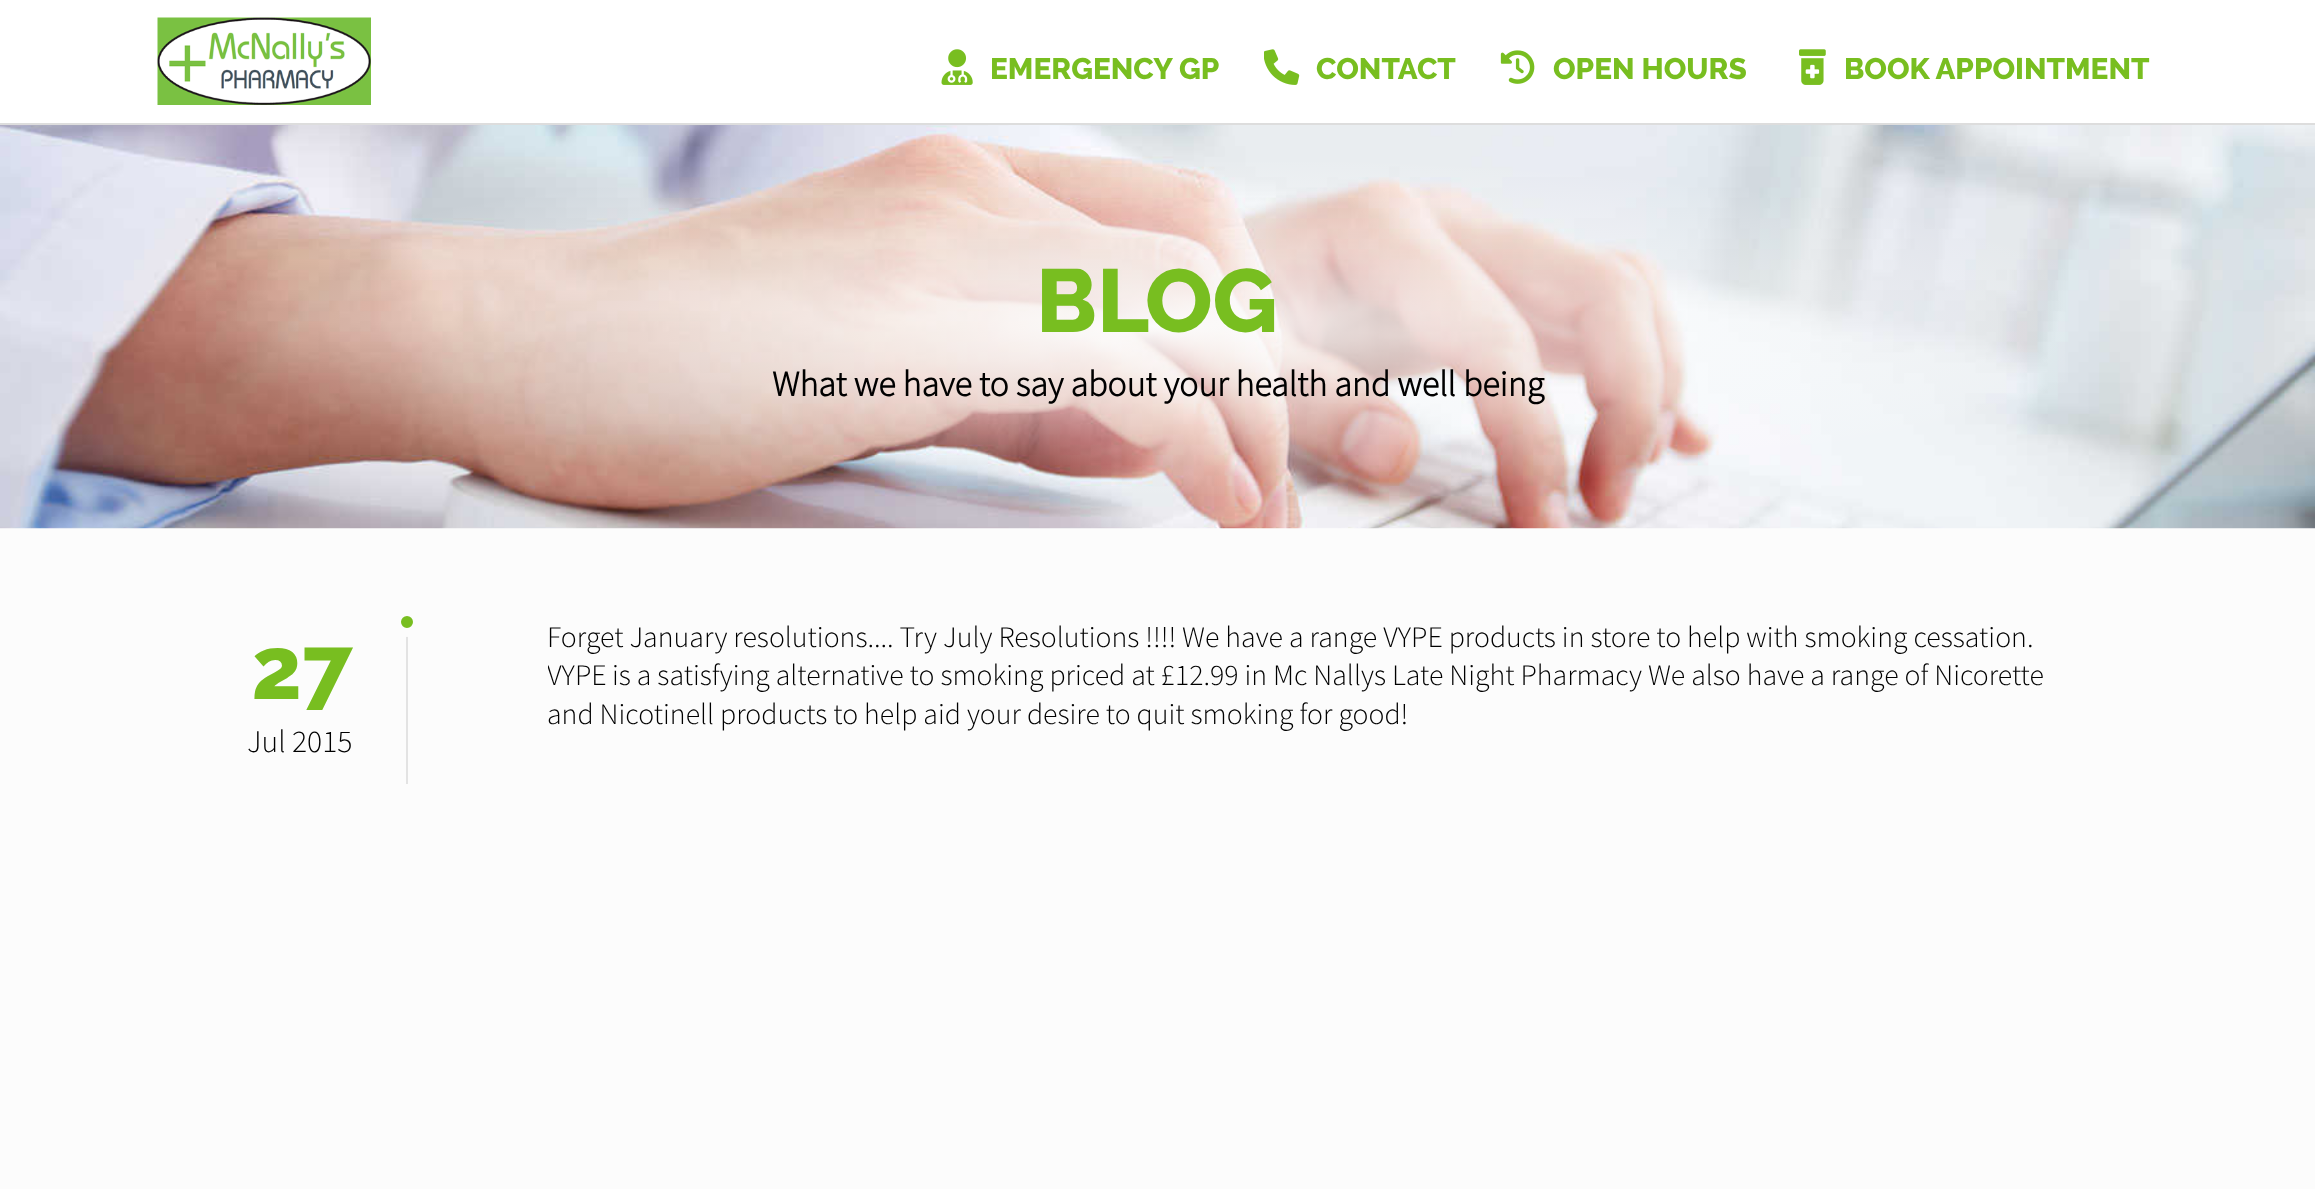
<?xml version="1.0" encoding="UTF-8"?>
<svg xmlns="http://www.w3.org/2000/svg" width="2315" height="1189">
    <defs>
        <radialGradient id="g1" gradientUnits="userSpaceOnUse" cx="0" cy="0" r="1" gradientTransform="matrix(1637 0 0 286 1158 326)"><stop offset="0" stop-color="#FCFCFC"/><stop offset="0.6" stop-color="#FCFCFC" stop-opacity="0"/></radialGradient>
        <clipPath id="clip1"><rect x="548" y="616" width="1503" height="168"/></clipPath>
    </defs>
    <rect width="100%" height="100%" fill="#FCFCFC"/>
    <rect x="0" y="0" width="2315" height="123" fill="#FFFFFF"/>
    <rect x="0" y="123" width="2315" height="2" fill="#DDDDDD"/>
    <image x="157" y="17" width="214" height="88" href="img_01.png"/>
    <image x="941" y="49" width="32" height="36" href="img_02.png"/>
    <text x="990" y="79" font-family="Raleway" font-size="29.75" font-weight="800" fill="#78BE20">EMERGENCY GP</text>
    <image x="1264" y="49" width="36" height="36" href="img_03.png"/>
    <text x="1316" y="79" font-family="Raleway" font-size="29.75" font-weight="800" fill="#78BE20">CONTACT</text>
    <image x="1500" y="50" width="35" height="34" href="img_04.png"/>
    <text x="1553" y="79" font-family="Raleway" font-size="29.75" font-weight="800" fill="#78BE20">OPEN HOURS</text>
    <image x="1799" y="49" width="27" height="36" href="img_05.png"/>
    <text x="1844" y="79" font-family="Raleway" font-size="29.75" font-weight="800" fill="#78BE20">BOOK APPOINTMENT</text>
    <image x="0" y="125" width="2315" height="404" href="img_06.png"/>
    <rect x="196" y="162" width="1869" height="332" fill="url(#g1)"/>
    <text x="1036" y="332" font-family="Raleway" font-size="89" font-weight="800" fill="#78BE20">BLOG</text>
    <text x="772" y="396" font-family="Source Sans Pro" font-size="35.7" font-weight="700" fill="#000000">What we have to say about your health and well being</text>
    <rect x="406" y="636" width="2" height="148" fill="#E3E3E3"/>
    <circle cx="407" cy="622" r="10.5" fill="#78BE20" stroke="#FCFCFC" stroke-width="9"/>
    <text x="251" y="699" font-family="Raleway" font-size="88" font-weight="800" fill="#78BE20">27</text>
    <text x="247" y="752" font-family="Source Sans Pro" font-size="31.5" font-weight="300" fill="#000000">Jul 2015</text>
    <text x="547" y="647" font-family="Source Sans Pro" font-size="29.75" font-weight="300" fill="#000000">Forget January resolutions.... Try July Resolutions !!!! We have a range VYPE products in store to help with smoking cessation.</text>
    <g clip-path="url(#clip1)">
        <text x="547" y="685" font-family="Source Sans Pro" font-size="29.75" font-weight="300" fill="#000000">VYPE</text>
    </g>
    <text x="612" y="685" font-family="Source Sans Pro" font-size="29.75" font-weight="300" fill="#000000">is a satisfying alternative to smoking priced at £12.99 in Mc Nallys Late Night Pharmacy We also have a range of Nicorette</text>
    <text x="547" y="724" font-family="Source Sans Pro" font-size="29.75" font-weight="300" fill="#000000">and Nicotinell products to help aid your desire to quit smoking for good!</text>
</svg>
